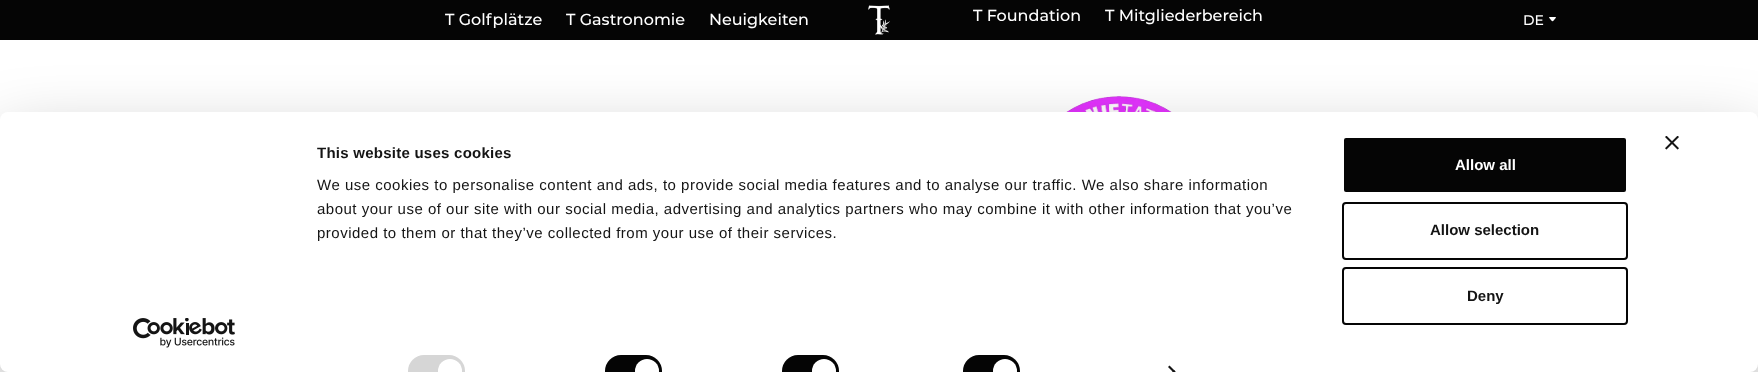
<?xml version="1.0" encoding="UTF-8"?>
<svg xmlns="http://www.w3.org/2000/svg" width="1758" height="372">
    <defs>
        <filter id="blur1" x="-50%" y="-200%" width="200%" height="500%"><feGaussianBlur stdDeviation="35"/></filter>
    </defs>
    <rect width="100%" height="100%" fill="#FFFFFF"/>
    <rect x="0" y="0" width="1758" height="40" fill="#050505"/>
    <text x="445" y="25" font-family="Montserrat" font-size="16" font-weight="500" fill="#FFFFFF">T Golfplätze</text>
    <text x="566" y="25" font-family="Montserrat" font-size="16" font-weight="500" fill="#FFFFFF">T Gastronomie</text>
    <text x="709" y="25" font-family="Montserrat" font-size="16" font-weight="500" fill="#FFFFFF">Neuigkeiten</text>
    <image x="868" y="5" width="22" height="30" href="img_01.png"/>
    <text x="973" y="21" font-family="Montserrat" font-size="16" font-weight="500" fill="#FFFFFF">T Foundation</text>
    <text x="1105" y="21" font-family="Montserrat" font-size="16" font-weight="500" fill="#FFFFFF">T Mitgliederbereich</text>
    <text x="1523" y="25" font-family="Montserrat" font-size="14" font-weight="500" fill="#FFFFFF">DE</text>
    <image x="1549" y="17" width="7" height="5" href="img_02.png"/>
    <image x="1066" y="96" width="106" height="16" href="img_03.png"/>
    <rect x="0" y="142" width="1758" height="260" rx="8" fill="#000000" fill-opacity="0.3" filter="url(#blur1)"/>
    <rect x="0" y="112" width="1758" height="260" rx="8" fill="#FFFFFF"/>
    <image x="1665" y="136" width="14" height="14" href="img_04.png"/>
    <text x="317" y="158" font-family="Liberation Sans" font-size="15" font-weight="700" letter-spacing="0.25" fill="#141414">This website uses cookies</text>
    <text font-family="Liberation Sans" font-size="15" letter-spacing="0.5" fill="#141414">
        <tspan x="317" y="190">We use cookies to personalise content and ads, to provide social media features and to analyse our traffic. We also share information</tspan>
        <tspan x="317" y="214">about your use of our site with our social media, advertising and analytics partners who may combine it with other information that you’ve</tspan>
        <tspan x="317" y="238">provided to them or that they’ve collected from your use of their services.</tspan>
    </text>
    <rect x="408" y="355" width="57" height="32" rx="16" fill="#D6D6D6"/>
    <circle cx="450" cy="371" r="12" fill="#FFFFFF"/>
    <rect x="605" y="355" width="57" height="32" rx="16" fill="#050505"/>
    <circle cx="647" cy="371" r="12" fill="#FFFFFF"/>
    <rect x="782" y="355" width="57" height="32" rx="16" fill="#050505"/>
    <circle cx="824" cy="371" r="12" fill="#FFFFFF"/>
    <rect x="963" y="355" width="57" height="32" rx="16" fill="#050505"/>
    <circle cx="1005" cy="371" r="12" fill="#FFFFFF"/>
    <path d="M 1169.5 365.5 L 1175.5 371.5 L 1175 372 H 1173 L 1168 367 Z" fill="#141414"/>
    <path d="M 1174 370 L 1175.5 371.5 L 1175 372 H 1172 Z" fill="#141414"/>
    <rect x="1343" y="137" width="284" height="56" rx="3" fill="#050505" stroke="#FFFFFF" stroke-width="2"/>
    <text x="1455" y="170" font-family="Liberation Sans" font-size="15" font-weight="700" fill="#FFFFFF">Allow all</text>
    <rect x="1343" y="203" width="284" height="56" rx="3" fill="none" stroke="#050505" stroke-width="2"/>
    <text x="1430" y="235" font-family="Liberation Sans" font-size="15" font-weight="700" fill="#141414">Allow selection</text>
    <rect x="1343" y="268" width="284" height="56" rx="3" fill="none" stroke="#050505" stroke-width="2"/>
    <text x="1467" y="301" font-family="Liberation Sans" font-size="15" font-weight="700" fill="#141414">Deny</text>
    <image x="133" y="318" width="102" height="30" href="img_05.png"/>
</svg>
